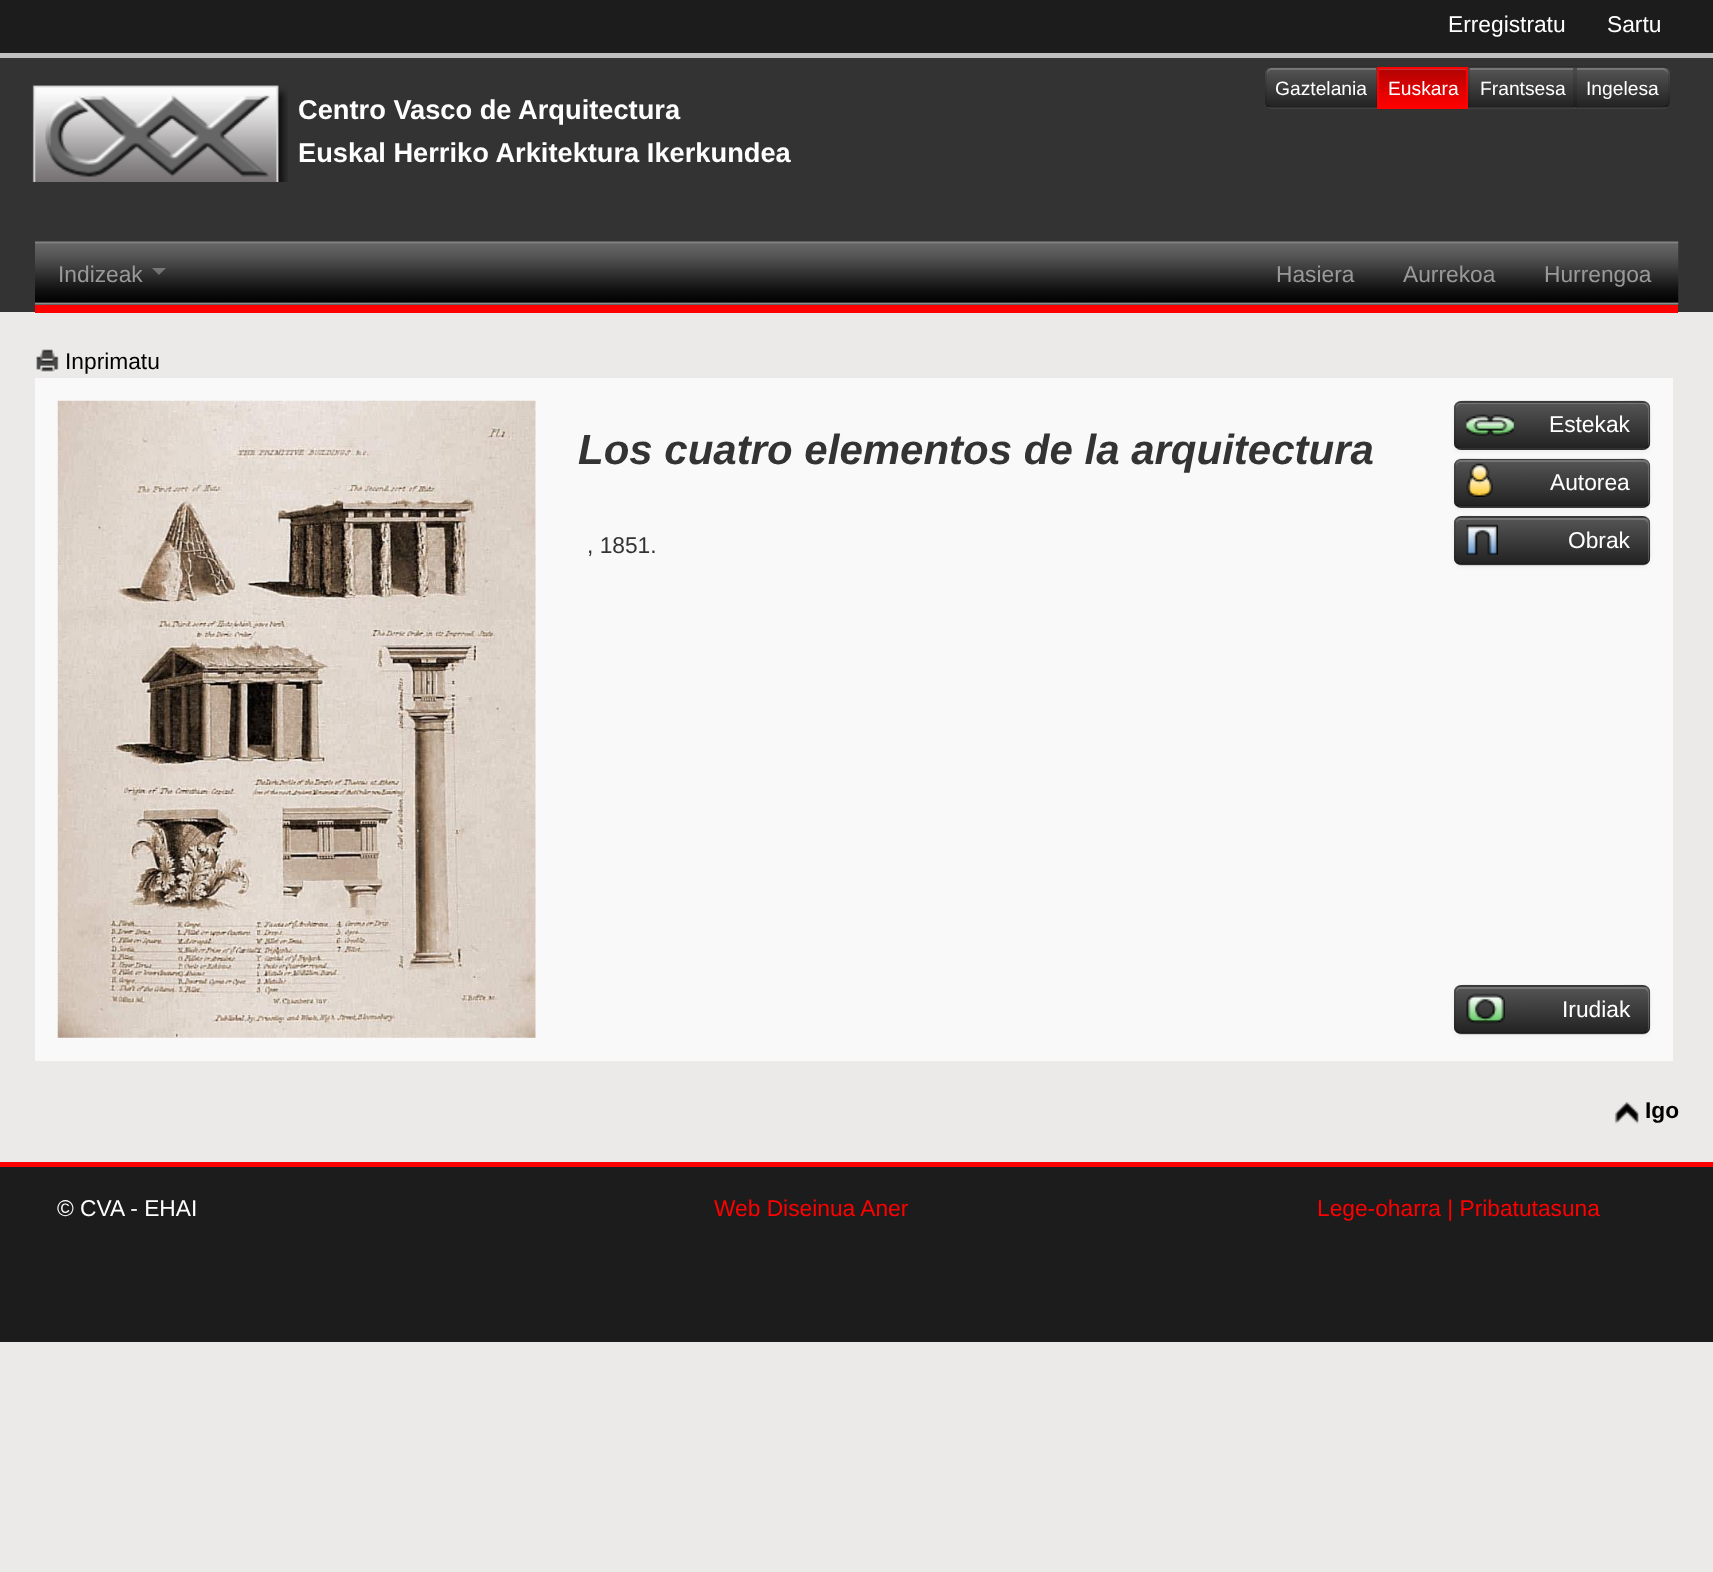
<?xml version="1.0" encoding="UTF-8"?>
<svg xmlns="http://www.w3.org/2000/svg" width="1713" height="1572">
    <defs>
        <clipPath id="clip1"><path d="M 1272 67 H 1377 V 109 H 1272 C 1268 109 1265 106 1265 102 V 74 C 1265 70 1268 67 1272 67 Z"/></clipPath>
        <linearGradient id="g1" gradientUnits="userSpaceOnUse" x1="1321" y1="68" x2="1321" y2="107"><stop offset="0" stop-color="#555555"/><stop offset="1" stop-color="#222222"/></linearGradient>
        <linearGradient id="g2" gradientUnits="userSpaceOnUse" x1="1423" y1="68" x2="1423" y2="107"><stop offset="0" stop-color="#B00303"/><stop offset="1" stop-color="#FF0000"/></linearGradient>
        <linearGradient id="g3" gradientUnits="userSpaceOnUse" x1="1522" y1="68" x2="1522" y2="107"><stop offset="0" stop-color="#555555"/><stop offset="1" stop-color="#222222"/></linearGradient>
        <clipPath id="clip2"><path d="M 1575 67 H 1663 C 1667 67 1670 70 1670 74 V 102 C 1670 106 1667 109 1663 109 H 1575 Z"/></clipPath>
        <linearGradient id="g4" gradientUnits="userSpaceOnUse" x1="1622" y1="68" x2="1622" y2="107"><stop offset="0" stop-color="#555555"/><stop offset="1" stop-color="#222222"/></linearGradient>
        <filter id="blur1" x="-50%" y="-200%" width="200%" height="500%"><feGaussianBlur stdDeviation="2"/></filter>
        <clipPath id="clip3"><rect x="1454" y="401" width="196" height="49" rx="7"/></clipPath>
        <linearGradient id="g5" gradientUnits="userSpaceOnUse" x1="1552" y1="403" x2="1552" y2="448"><stop offset="0" stop-color="#555555"/><stop offset="1" stop-color="#222222"/></linearGradient>
        <clipPath id="clip4"><rect x="1454" y="459" width="196" height="49" rx="7"/></clipPath>
        <linearGradient id="g6" gradientUnits="userSpaceOnUse" x1="1552" y1="460" x2="1552" y2="506"><stop offset="0" stop-color="#555555"/><stop offset="1" stop-color="#222222"/></linearGradient>
        <clipPath id="clip5"><rect x="1454" y="516" width="196" height="49" rx="7"/></clipPath>
        <linearGradient id="g7" gradientUnits="userSpaceOnUse" x1="1552" y1="518" x2="1552" y2="564"><stop offset="0" stop-color="#555555"/><stop offset="1" stop-color="#222222"/></linearGradient>
        <clipPath id="clip6"><rect x="1454" y="985" width="196" height="49" rx="7"/></clipPath>
        <linearGradient id="g8" gradientUnits="userSpaceOnUse" x1="1552" y1="987" x2="1552" y2="1033"><stop offset="0" stop-color="#555555"/><stop offset="1" stop-color="#222222"/></linearGradient>
    </defs>
    <rect width="100%" height="100%" fill="#ECE9E9"/>
    <rect x="0" y="58" width="1713" height="254" fill="#333333"/>
    <rect x="0" y="0" width="1713" height="53" fill="#1C1C1C"/>
    <rect x="0" y="53" width="1713" height="5" fill="#C0C0C0"/>
    <text x="1448" y="32" font-family="Liberation Sans" font-size="22.75" fill="#FFFFFF">Erregistratu</text>
    <text x="1607" y="32" font-family="Liberation Sans" font-size="22.75" fill="#FFFFFF">Sartu</text>
    <path d="M 1272 67 H 1377 V 109 H 1272 C 1268 109 1265 106 1265 102 V 74 C 1265 70 1268 67 1272 67 Z" fill="#414141"/>
    <g clip-path="url(#clip1)">
        <rect x="1265" y="68" width="112" height="39" fill="url(#g1)"/>
    </g>
    <path d="M 1272 70 H 1376 V 68 H 1272 C 1269 68 1267 70 1267 73 V 75 C 1267 72 1269 70 1272 70 Z" fill="#FFFFFF" fill-opacity="0.2"/>
    <path d="M 1272 68 C 1271 68 1269 69 1268 70 L 1267 68 L 1270 66 H 1377 L 1376 68 Z" fill="#000000" fill-opacity="0.1"/>
    <path d="M 1377 67 V 108 L 1376 107 V 68 Z" fill="#000000" fill-opacity="0.1"/>
    <path d="M 1377 108 H 1272 C 1270 108 1269 107 1267 106 L 1268 105 L 1271 107 H 1376 Z" fill="#000000" fill-opacity="0.25"/>
    <path d="M 1265 72 C 1265.5 70.5 1266 69.5 1267 68.5 L 1268.5 69.5 C 1267.5 71 1267 72.5 1267 74 V 102 C 1267 103 1267.5 104.5 1268.5 105.5 L 1267.5 106.5 C 1266.5 105.5 1265.5 104.5 1265 103.5 Z" fill="#000000" fill-opacity="0.1"/>
    <text x="1275" y="95" font-family="Liberation Sans" font-size="19.25" fill="#FFFFFF">Gaztelania</text>
    <rect x="1379" y="70" width="87" height="37" fill="url(#g2)"/>
    <rect x="1379" y="69" width="88" height="1" fill="#C13535"/>
    <rect x="1378" y="68" width="89" height="40" fill="none" stroke="#FF0000" stroke-width="2"/>
    <text x="1388" y="95" font-family="Liberation Sans" font-size="19.25" fill="#FFFFFF">Euskara</text>
    <rect x="1468" y="67" width="107" height="42" fill="#414141"/>
    <rect x="1468" y="68" width="107" height="39" fill="url(#g3)"/>
    <rect x="1470" y="68" width="103" height="2" fill="#767676"/>
    <path d="M 1468 66 H 1575 L 1573 68 H 1470 Z" fill="#000000" fill-opacity="0.1"/>
    <path d="M 1575 66 V 108 L 1573 107 V 68 Z" fill="#000000" fill-opacity="0.1"/>
    <path d="M 1575 108 H 1468 L 1470 107 H 1573 Z" fill="#313131"/>
    <path d="M 1468 108 V 66 L 1470 68 V 107 Z" fill="#000000" fill-opacity="0.1"/>
    <text x="1480" y="95" font-family="Liberation Sans" font-size="19.25" fill="#FFFFFF">Frantsesa</text>
    <path d="M 1575 67 H 1663 C 1667 67 1670 70 1670 74 V 102 C 1670 106 1667 109 1663 109 H 1575 Z" fill="#414141"/>
    <g clip-path="url(#clip2)">
        <rect x="1575" y="68" width="95" height="39" fill="url(#g4)"/>
    </g>
    <path d="M 1577 70 H 1662 C 1665 70 1668 72 1668 75 V 73 C 1668 70 1666 68 1663 68 H 1577 Z" fill="#FFFFFF" fill-opacity="0.2"/>
    <path d="M 1577 68 L 1575 66 H 1665 L 1668 68 L 1666 70 C 1665 69 1664 68 1662 68 Z" fill="#000000" fill-opacity="0.1"/>
    <path d="M 1669.5 104 L 1667.5 106.5 L 1666 105 C 1667.5 104 1668 103 1668 102 V 74 C 1668 72.5 1667 71 1666 70 L 1667.5 68.5 L 1669.5 71.5 Z" fill="#000000" fill-opacity="0.1"/>
    <path d="M 1667 106 C 1666 107 1664 108 1662 108 H 1576 L 1577 106 V 107 H 1663 L 1666 105 Z" fill="#000000" fill-opacity="0.25"/>
    <path d="M 1575 66 V 108 H 1576 L 1577 106 V 68 Z" fill="#000000" fill-opacity="0.1"/>
    <text x="1586" y="95" font-family="Liberation Sans" font-size="19.25" fill="#FFFFFF">Ingelesa</text>
    <image x="32" y="85" width="256" height="97" href="img_01.png"/>
    <text font-family="Liberation Sans" font-size="27.25" font-weight="700" fill="#FFFFFF">
        <tspan x="298" y="119">Centro Vasco de Arquitectura</tspan>
        <tspan x="298" y="162">Euskal Herriko Arkitektura Ikerkundea</tspan>
    </text>
    <image x="35" y="241" width="1644" height="64" href="img_02.png"/>
    <rect x="35" y="305" width="1643" height="8" fill="#FF0000"/>
    <text x="58" y="282" font-family="Liberation Sans" font-size="22.75" fill="#999999">Indizeak</text>
    <path d="M 152 268 H 166 L 159 275 Z" fill="#FFFFFF" fill-opacity="0.3"/>
    <text x="1276" y="282" font-family="Liberation Sans" font-size="22.75" fill="#999999">Hasiera</text>
    <text x="1403" y="282" font-family="Liberation Sans" font-size="22.75" fill="#999999">Aurrekoa</text>
    <text x="1544" y="282" font-family="Liberation Sans" font-size="22.75" fill="#999999">Hurrengoa</text>
    <image x="36" y="349" width="23" height="24" href="img_03.png"/>
    <text x="65" y="369" font-family="Liberation Sans" font-size="22.75" fill="#000000">Inprimatu</text>
    <rect x="35" y="378" width="1638" height="683" fill="#F9F9F9"/>
    <image x="57" y="400" width="479" height="638" href="img_04.png"/>
    <text x="578" y="464" font-family="Liberation Sans" font-size="42" font-weight="700" font-style="italic" fill="#333333">Los cuatro elementos de la arquitectura</text>
    <text x="587" y="553" font-family="Liberation Sans" font-size="22.75" fill="#333333">, 1851.</text>
    <rect x="1454" y="403" width="196" height="49" rx="7" fill="#000000" fill-opacity="0.05" filter="url(#blur1)"/>
    <rect x="1454" y="401" width="196" height="49" rx="7" fill="#414141"/>
    <g clip-path="url(#clip3)">
        <rect x="1454" y="403" width="196" height="45" fill="url(#g5)"/>
    </g>
    <path d="M 1461 404 H 1643 C 1646 404 1648 407 1648 410 V 444 V 447 C 1648 446 1649 444 1649 443 V 408 C 1649 405 1647 403 1644 403 H 1461 C 1458 403 1456 405 1456 408 V 410 C 1456 407 1458 404 1461 404 Z" fill="#FFFFFF" fill-opacity="0.2"/>
    <path d="M 1647.5 447 C 1646.5 448 1645 449 1643 449 H 1461 C 1459.5 449 1458 448 1457 447" fill="none" stroke="#000000" stroke-opacity="0.25" stroke-width="1.8"/>
    <path d="M 1457 447 C 1453.5 443.5 1455 435 1455 431 C 1455 394.5 1450 401.5 1491.5 401.5 H 1613 C 1654.5 401.5 1649.5 394.5 1649.5 431 C 1649.5 435 1651 443.5 1647.5 447" fill="none" stroke="#000000" stroke-opacity="0.1" stroke-width="1.8"/>
    <image x="1466" y="414" width="48" height="22" href="img_05.png"/>
    <text x="1549" y="432" font-family="Liberation Sans" font-size="22.75" fill="#FFFFFF">Estekak</text>
    <rect x="1454" y="460" width="196" height="49" rx="7" fill="#000000" fill-opacity="0.05" filter="url(#blur1)"/>
    <rect x="1454" y="459" width="196" height="49" rx="7" fill="#414141"/>
    <g clip-path="url(#clip4)">
        <rect x="1454" y="460" width="196" height="46" fill="url(#g6)"/>
    </g>
    <path d="M 1461 462 H 1643 C 1646 462 1648 464 1648 467 V 502 V 505 C 1648 504 1649 502 1649 501 V 465 C 1649 462 1647 460 1644 460 H 1461 C 1458 460 1456 462 1456 465 V 467 C 1456 464 1458 462 1461 462 Z" fill="#FFFFFF" fill-opacity="0.2"/>
    <path d="M 1647.5 505 C 1646.5 506 1645 506.5 1643 506.5 H 1461 C 1459.5 506.5 1458 506 1457 505" fill="none" stroke="#000000" stroke-opacity="0.25" stroke-width="1.8"/>
    <path d="M 1457 505 C 1453.5 501.5 1455 492.5 1455 489 C 1455 452 1450 459.5 1491.5 459.5 H 1613 C 1654.5 459.5 1649.5 452 1649.5 489 C 1649.5 492.5 1651 501.5 1647.5 505" fill="none" stroke="#000000" stroke-opacity="0.1" stroke-width="1.8"/>
    <image x="1466" y="463" width="27" height="34" href="img_06.png"/>
    <text x="1550" y="490" font-family="Liberation Sans" font-size="22.75" fill="#FFFFFF">Autorea</text>
    <rect x="1454" y="518" width="196" height="49" rx="7" fill="#000000" fill-opacity="0.05" filter="url(#blur1)"/>
    <rect x="1454" y="516" width="196" height="49" rx="7" fill="#414141"/>
    <g clip-path="url(#clip5)">
        <rect x="1454" y="518" width="196" height="46" fill="url(#g7)"/>
    </g>
    <path d="M 1461 520 H 1643 C 1646 520 1648 522 1648 525 V 560 L 1647 563 C 1648 562 1649 560 1649 559 V 523 C 1649 520 1647 518 1644 518 H 1461 C 1458 518 1456 520 1456 523 V 525 C 1456 522 1458 520 1461 520 Z" fill="#FFFFFF" fill-opacity="0.2"/>
    <path d="M 1647.5 562.5 C 1646.5 563.5 1645 564.5 1643 564.5 H 1461 C 1459.5 564.5 1458 563.5 1457 562.5" fill="none" stroke="#000000" stroke-opacity="0.25" stroke-width="1.8"/>
    <path d="M 1457 562.5 C 1453.5 559 1455 550.5 1455 546.5 C 1455 510 1450 517 1491.5 517 H 1613 C 1654.5 517 1649.5 510 1649.5 546.5 C 1649.5 550.5 1651 559 1647.5 562.5" fill="none" stroke="#000000" stroke-opacity="0.1" stroke-width="1.8"/>
    <image x="1466" y="524" width="32" height="31" href="img_07.png"/>
    <text x="1568" y="548" font-family="Liberation Sans" font-size="22.75" fill="#FFFFFF">Obrak</text>
    <rect x="1454" y="987" width="196" height="49" rx="7" fill="#000000" fill-opacity="0.05" filter="url(#blur1)"/>
    <rect x="1454" y="985" width="196" height="49" rx="7" fill="#414141"/>
    <g clip-path="url(#clip6)">
        <rect x="1454" y="987" width="196" height="46" fill="url(#g8)"/>
    </g>
    <path d="M 1461 989 H 1643 C 1646 989 1648 991 1648 994 V 1029 L 1647 1032 C 1648 1031 1649 1029 1649 1028 V 992 C 1649 989 1647 987 1644 987 H 1461 C 1458 987 1456 989 1456 992 V 994 C 1456 991 1458 989 1461 989 Z" fill="#FFFFFF" fill-opacity="0.2"/>
    <path d="M 1647.5 1031.5 C 1646.5 1032.5 1645 1033.5 1643 1033.5 H 1461 C 1459.5 1033.5 1458 1032.5 1457 1031.5" fill="none" stroke="#000000" stroke-opacity="0.25" stroke-width="1.8"/>
    <path d="M 1457 1031.5 C 1453.5 1028 1455 1019.5 1455 1015.5 C 1455 979 1450 986 1491.5 986 H 1613 C 1654.5 986 1649.5 979 1649.5 1015.5 C 1649.5 1019.5 1651 1028 1647.5 1031.5" fill="none" stroke="#000000" stroke-opacity="0.1" stroke-width="1.8"/>
    <image x="1466" y="993" width="39" height="31" href="img_08.png"/>
    <text x="1562" y="1017" font-family="Liberation Sans" font-size="22.75" fill="#FFFFFF">Irudiak</text>
    <image x="1614" y="1102" width="25" height="22" href="img_09.png"/>
    <text x="1645" y="1118" font-family="Liberation Sans" font-size="22.75" font-weight="700" fill="#000000">Igo</text>
    <rect x="0" y="1167" width="1713" height="175" fill="#1C1C1C"/>
    <rect x="0" y="1162" width="1713" height="5" fill="#FF0000"/>
    <text x="57" y="1216" font-family="Liberation Sans" font-size="22.75" fill="#FFFFFF">© CVA - EHAI</text>
    <text x="714" y="1216" font-family="Liberation Sans" font-size="22.75" fill="#FF0000">Web Diseinua Aner</text>
    <text x="1317" y="1216" font-family="Liberation Sans" font-size="22.75" fill="#FF0000">Lege-oharra | Pribatutasuna</text>
</svg>
